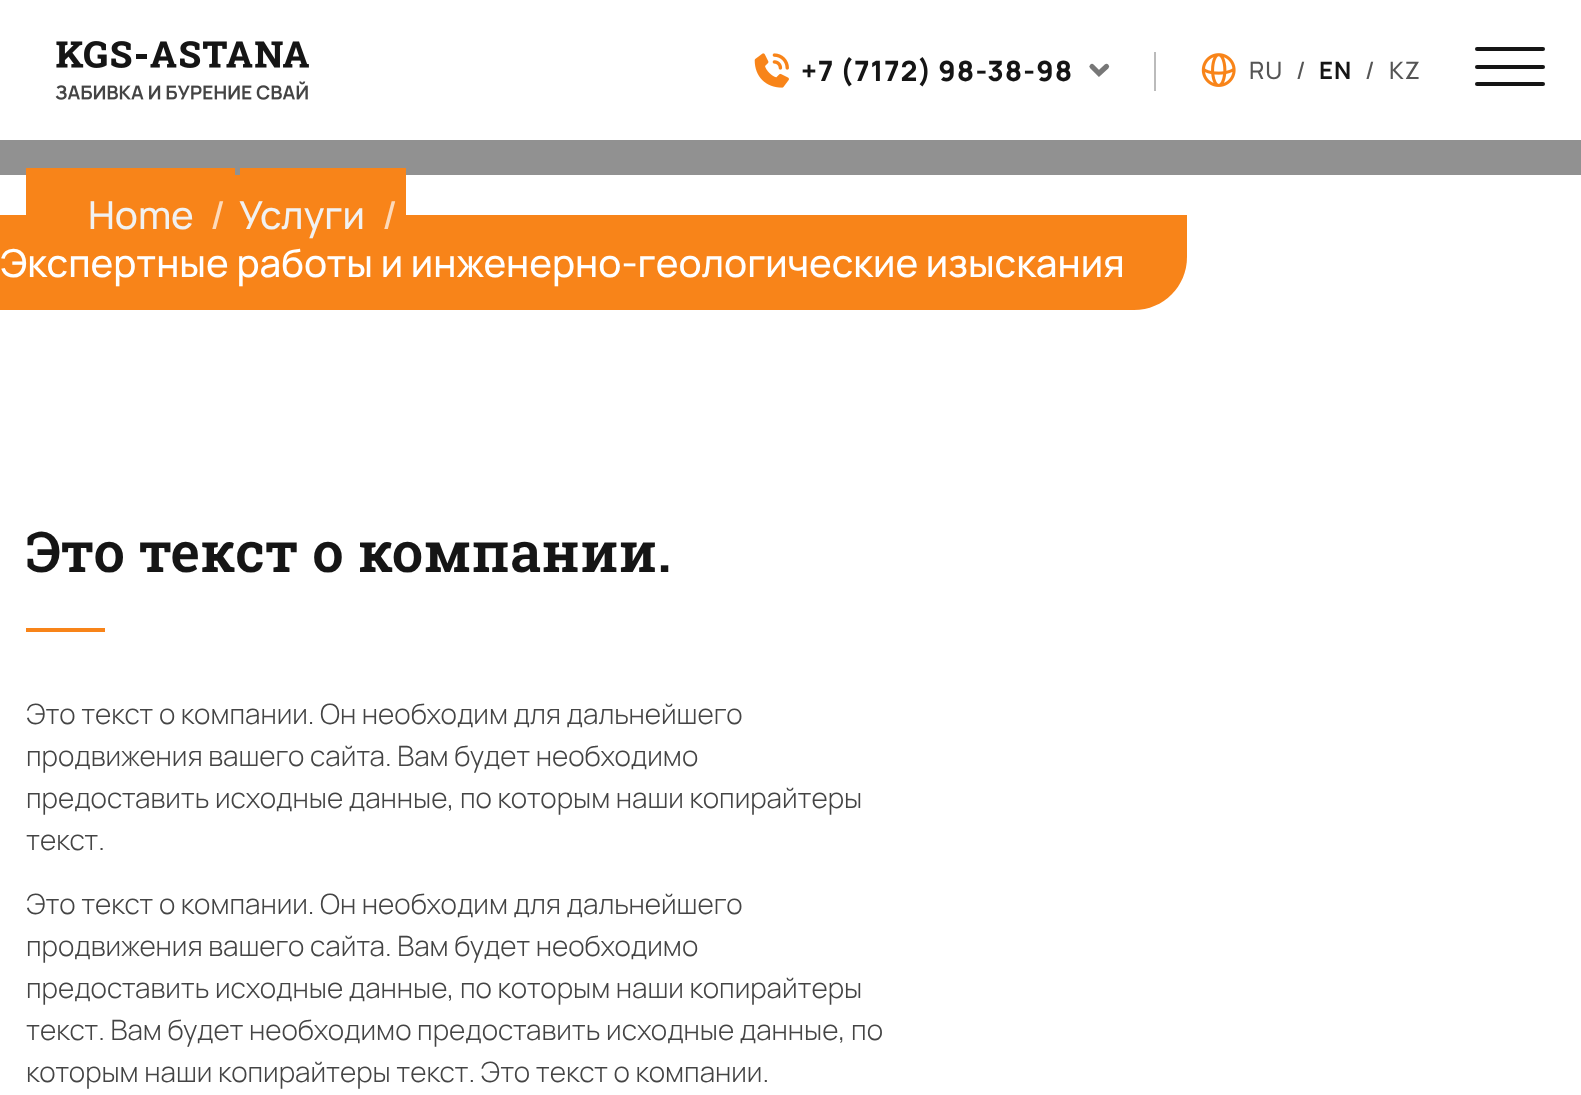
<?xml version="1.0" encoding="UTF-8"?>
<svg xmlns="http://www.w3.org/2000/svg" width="1581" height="1095">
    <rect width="100%" height="100%" fill="#FFFFFF"/>
    <image x="55" y="41" width="254" height="59" href="img_01.png"/>
    <image x="754" y="53" width="35" height="35" href="img_02.png"/>
    <text x="801" y="81" word-spacing="-1" font-family="Manrope" font-size="28" font-weight="800" letter-spacing="1.1" fill="#151515">+7 (7172) 98-38-98</text>
    <path d="M 1092 66.5 L 1099 73.5 L 1106.5 66.5" fill="none" stroke="#777777" stroke-width="5.2" stroke-linecap="round"/>
    <rect x="1154" y="52" width="2" height="39" fill="#BBBBBB"/>
    <image x="1201" y="53" width="35" height="34" href="img_03.png"/>
    <text x="1249" y="79" font-family="Manrope" font-size="24" font-weight="500" letter-spacing="1" fill="#555555">RU</text>
    <text x="1296" y="79" font-family="Manrope" font-size="24" font-weight="500" letter-spacing="1" fill="#555555">/</text>
    <text x="1319" y="79" font-family="Manrope" font-size="24" font-weight="700" letter-spacing="1" fill="#151515">EN</text>
    <text x="1365" y="79" font-family="Manrope" font-size="24" font-weight="500" letter-spacing="1" fill="#555555">/</text>
    <text x="1389" y="79" font-family="Manrope" font-size="24" font-weight="500" letter-spacing="1" fill="#555555">KZ</text>
    <rect x="1475" y="82" width="70" height="4" rx="2" fill="#151515"/>
    <rect x="1475" y="47" width="70" height="4" rx="2" fill="#151515"/>
    <rect x="1475" y="65" width="70" height="4" rx="2" fill="#151515"/>
    <rect x="0" y="140" width="1581" height="35" fill="#919191"/>
    <rect x="26" y="168" width="209" height="47" fill="#F88419"/>
    <rect x="235" y="175" width="5" height="40" fill="#F88419"/>
    <rect x="240" y="168" width="166" height="47" fill="#F88419"/>
    <path d="M 0 215 H 1187 V 257 C 1187 286.5 1163.5 310 1134 310 H 0 Z" fill="#F88419"/>
    <text x="88" y="229" font-family="Manrope" font-size="38.5" font-weight="500" fill="#F1F1F1">Home</text>
    <text x="210" y="229" font-family="Manrope" font-size="38.5" font-weight="500" fill="#FDDABA">/</text>
    <text x="239" y="229" font-family="Manrope" font-size="38.5" font-weight="500" fill="#F1F1F1">Услуги</text>
    <text x="382" y="229" font-family="Manrope" font-size="38.5" font-weight="500" fill="#FDDABA">/</text>
    <text x="0" y="277" font-family="Manrope" font-size="38.5" font-weight="500" fill="#FFFFFF">Экспертные работы и инженерно-геологические изыскания</text>
    <text x="26" y="572" font-family="Roboto Slab" font-size="56" font-weight="600" fill="#151515">Это текст о компании.</text>
    <rect x="26" y="628" width="79" height="4" fill="#F88419"/>
    <text font-family="Manrope" font-size="28" font-weight="300" fill="#444444">
        <tspan x="26" y="724">Это текст о компании. Он необходим для дальнейшего</tspan>
        <tspan x="26" y="766">продвижения вашего сайта. Вам будет необходимо</tspan>
        <tspan x="26" y="808">предоставить исходные данные, по которым наши копирайтеры</tspan>
        <tspan x="26" y="850">текст.</tspan>
    </text>
    <text font-family="Manrope" font-size="28" font-weight="300" fill="#444444">
        <tspan x="26" y="914">Это текст о компании. Он необходим для дальнейшего</tspan>
        <tspan x="26" y="956">продвижения вашего сайта. Вам будет необходимо</tspan>
        <tspan x="26" y="998">предоставить исходные данные, по которым наши копирайтеры</tspan>
        <tspan x="26" y="1040">текст. Вам будет необходимо предоставить исходные данные, по</tspan>
        <tspan x="26" y="1082">которым наши копирайтеры текст. Это текст о компании.</tspan>
    </text>
</svg>
